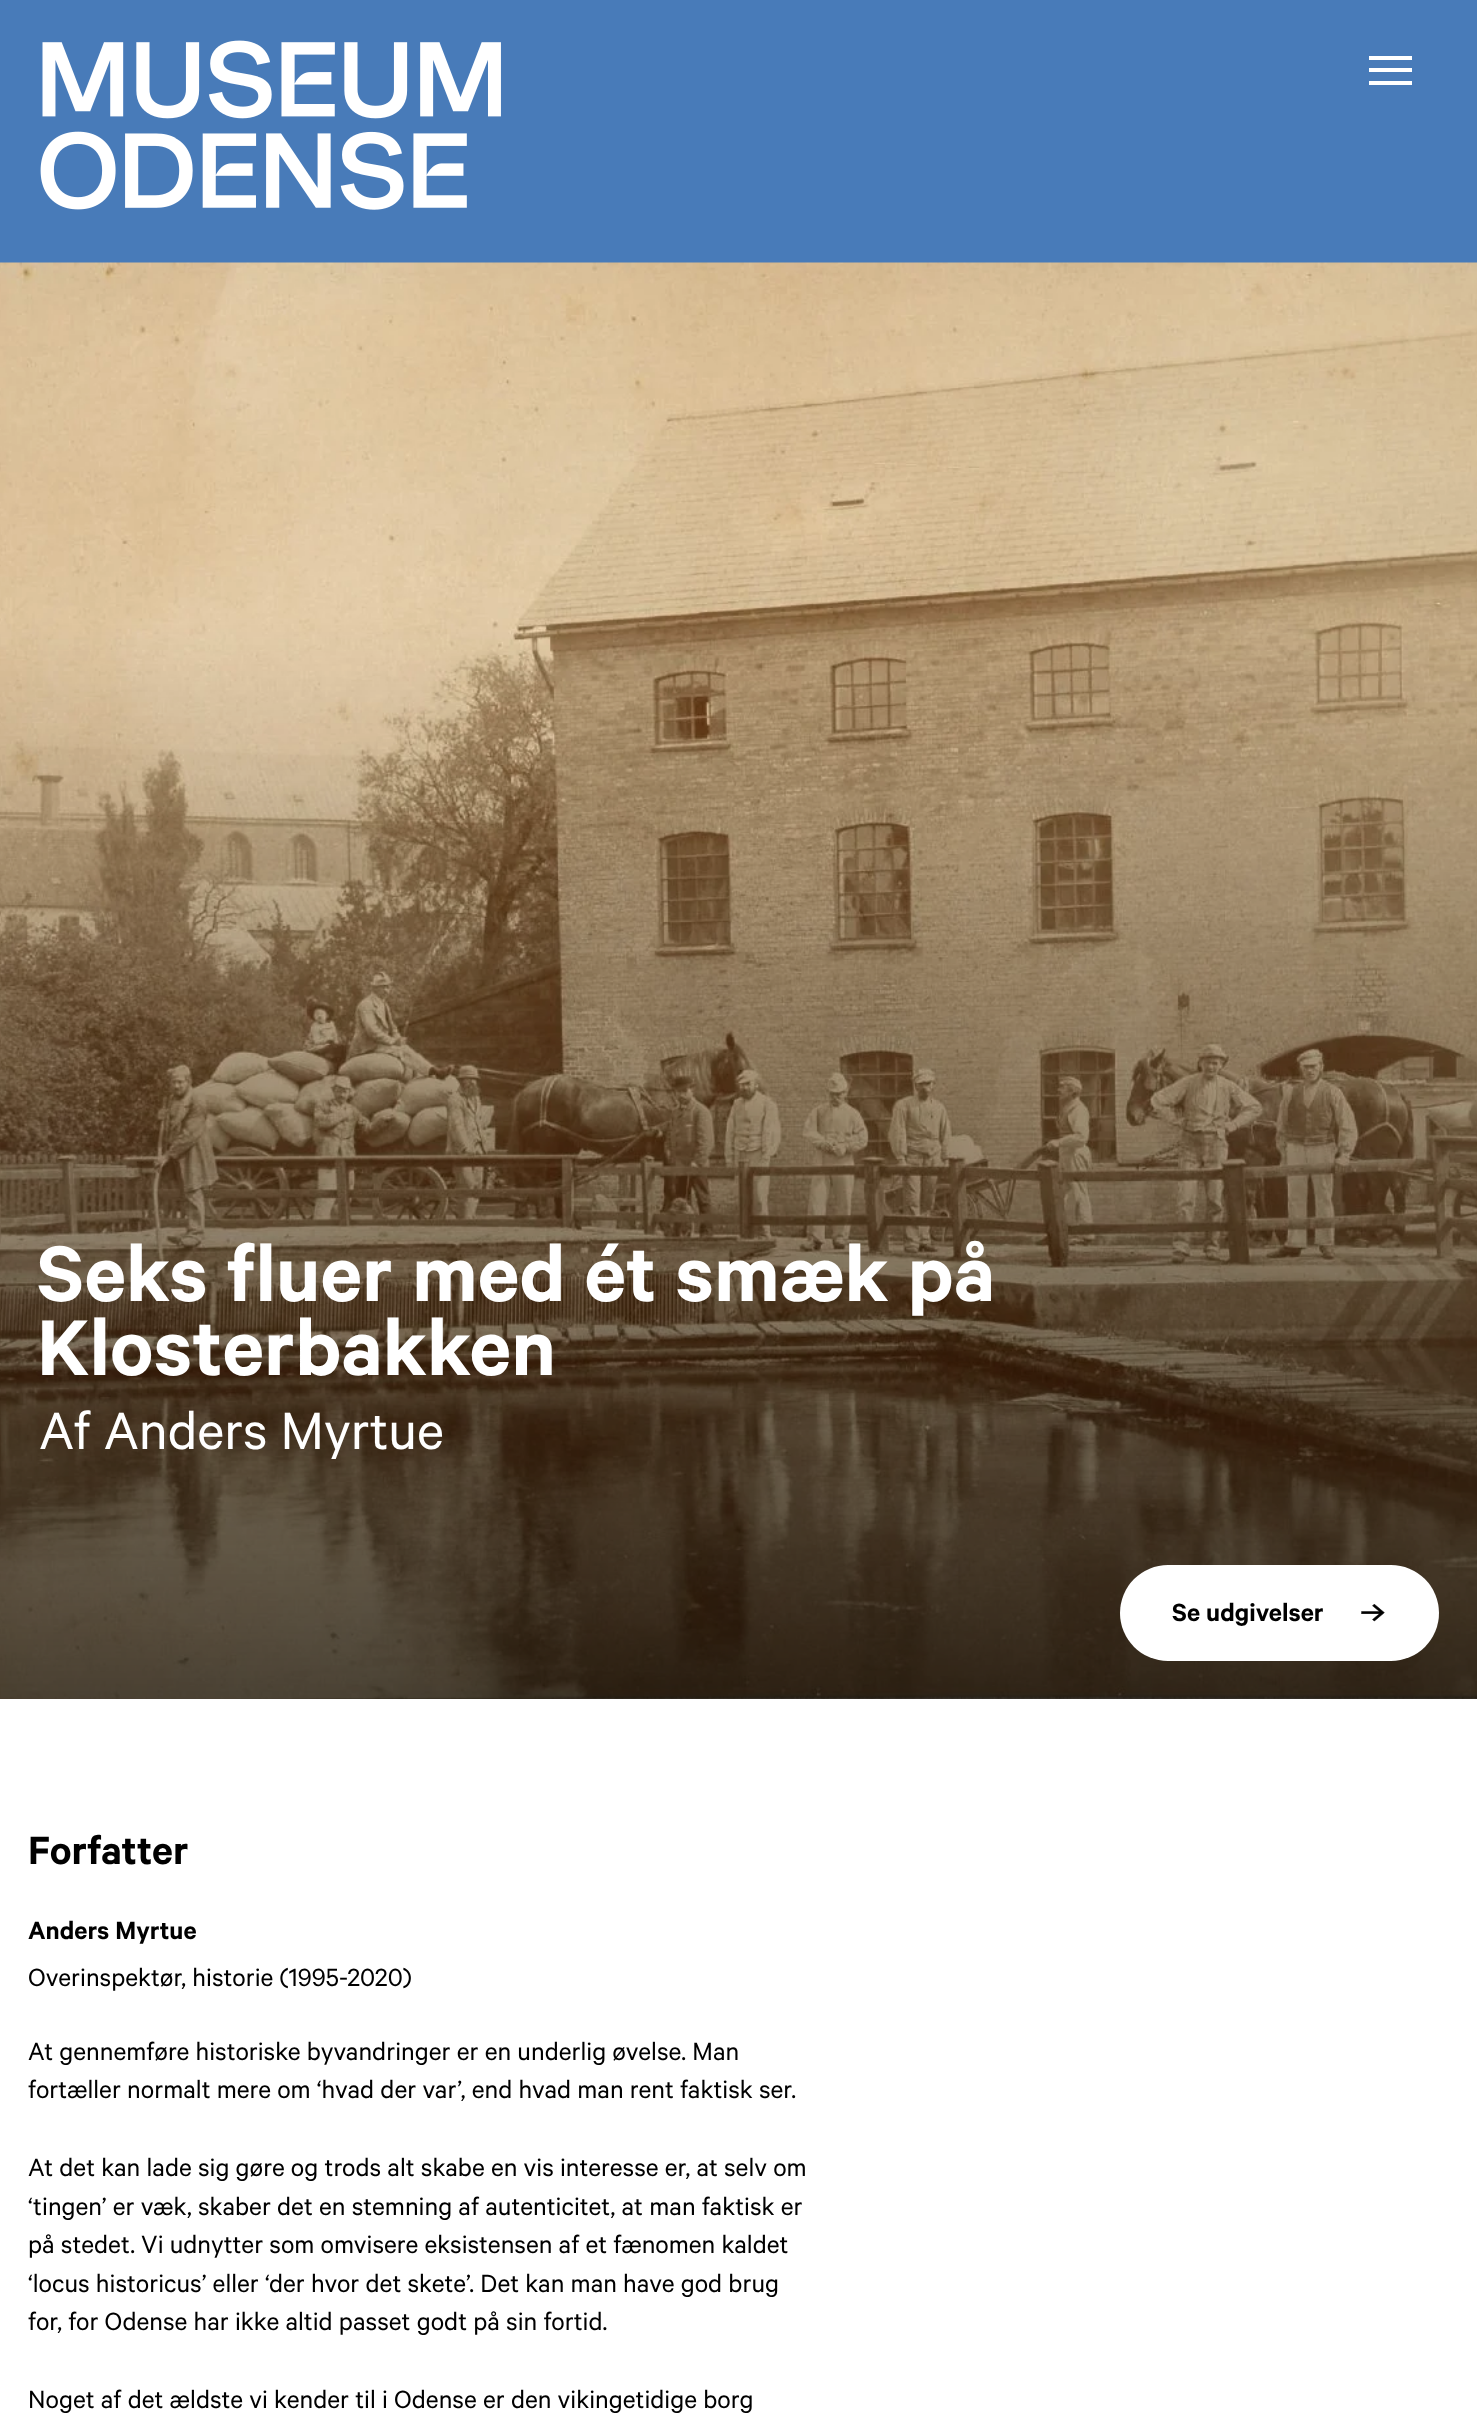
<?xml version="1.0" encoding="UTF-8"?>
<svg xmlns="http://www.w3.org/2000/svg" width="1477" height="2426">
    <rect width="100%" height="100%" fill="#FFFFFF"/>
    <rect x="0" y="0" width="1477" height="263" fill="#487BB9"/>
    <image x="40" y="40" width="461" height="170" href="img_01.png"/>
    <rect x="1369" y="56" width="43" height="4" fill="#FFFFFF"/>
    <rect x="1369" y="68" width="43" height="4" fill="#FFFFFF"/>
    <rect x="1369" y="81" width="43" height="4" fill="#FFFFFF"/>
    <image x="0" y="262" width="1477" height="1437" href="img_02.png"/>
    <text font-family="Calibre" font-size="88.6" font-weight="600" fill="#FFFFFF">
        <tspan x="37" y="1301">Seks fluer med ét smæk på</tspan>
        <tspan x="37" y="1375">Klosterbakken</tspan>
    </text>
    <text x="39" y="1449" font-family="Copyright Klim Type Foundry" font-size="59" fill="#FFFFFF">Af Anders Myrtue</text>
    <rect x="1120" y="1565" width="319" height="96" rx="48" fill="#FFFFFF"/>
    <text x="1172" y="1621" font-family="Calibre" font-size="28" font-weight="600" fill="#000000">Se udgivelser</text>
    <image x="1361" y="1604" width="24" height="18" href="img_03.png"/>
    <text x="28" y="1864" font-family="Calibre" font-size="44.5" font-weight="600" fill="#000000">Forfatter</text>
    <text x="28" y="1939" font-family="Calibre" font-size="28" font-weight="600" fill="#000000">Anders Myrtue</text>
    <text x="28" y="1986" font-family="Copyright Klim Type Foundry" font-size="28" fill="#000000">Overinspektør, historie (1995-2020)</text>
    <text font-family="Copyright Klim Type Foundry" font-size="28" fill="#000000">
        <tspan x="28" y="2060">At gennemføre historiske byvandringer er en underlig øvelse. Man</tspan>
        <tspan x="28" y="2098">fortæller normalt mere om ‘hvad der var’, end hvad man rent faktisk ser.</tspan>
    </text>
    <text font-family="Copyright Klim Type Foundry" font-size="28" fill="#000000">
        <tspan x="28" y="2176">At det kan lade sig gøre og trods alt skabe en vis interesse er, at selv om</tspan>
        <tspan x="28" y="2215">‘tingen’ er væk, skaber det en stemning af autenticitet, at man faktisk er</tspan>
        <tspan x="28" y="2253">på stedet. Vi udnytter som omvisere eksistensen af et fænomen kaldet</tspan>
        <tspan x="28" y="2292">‘locus historicus’ eller ‘der hvor det skete’. Det kan man have god brug</tspan>
        <tspan x="28" y="2330">for, for Odense har ikke altid passet godt på sin fortid.</tspan>
    </text>
    <text x="28" y="2408" font-family="Copyright Klim Type Foundry" font-size="28" fill="#000000">Noget af det ældste vi kender til i Odense er den vikingetidige borg</text>
</svg>
